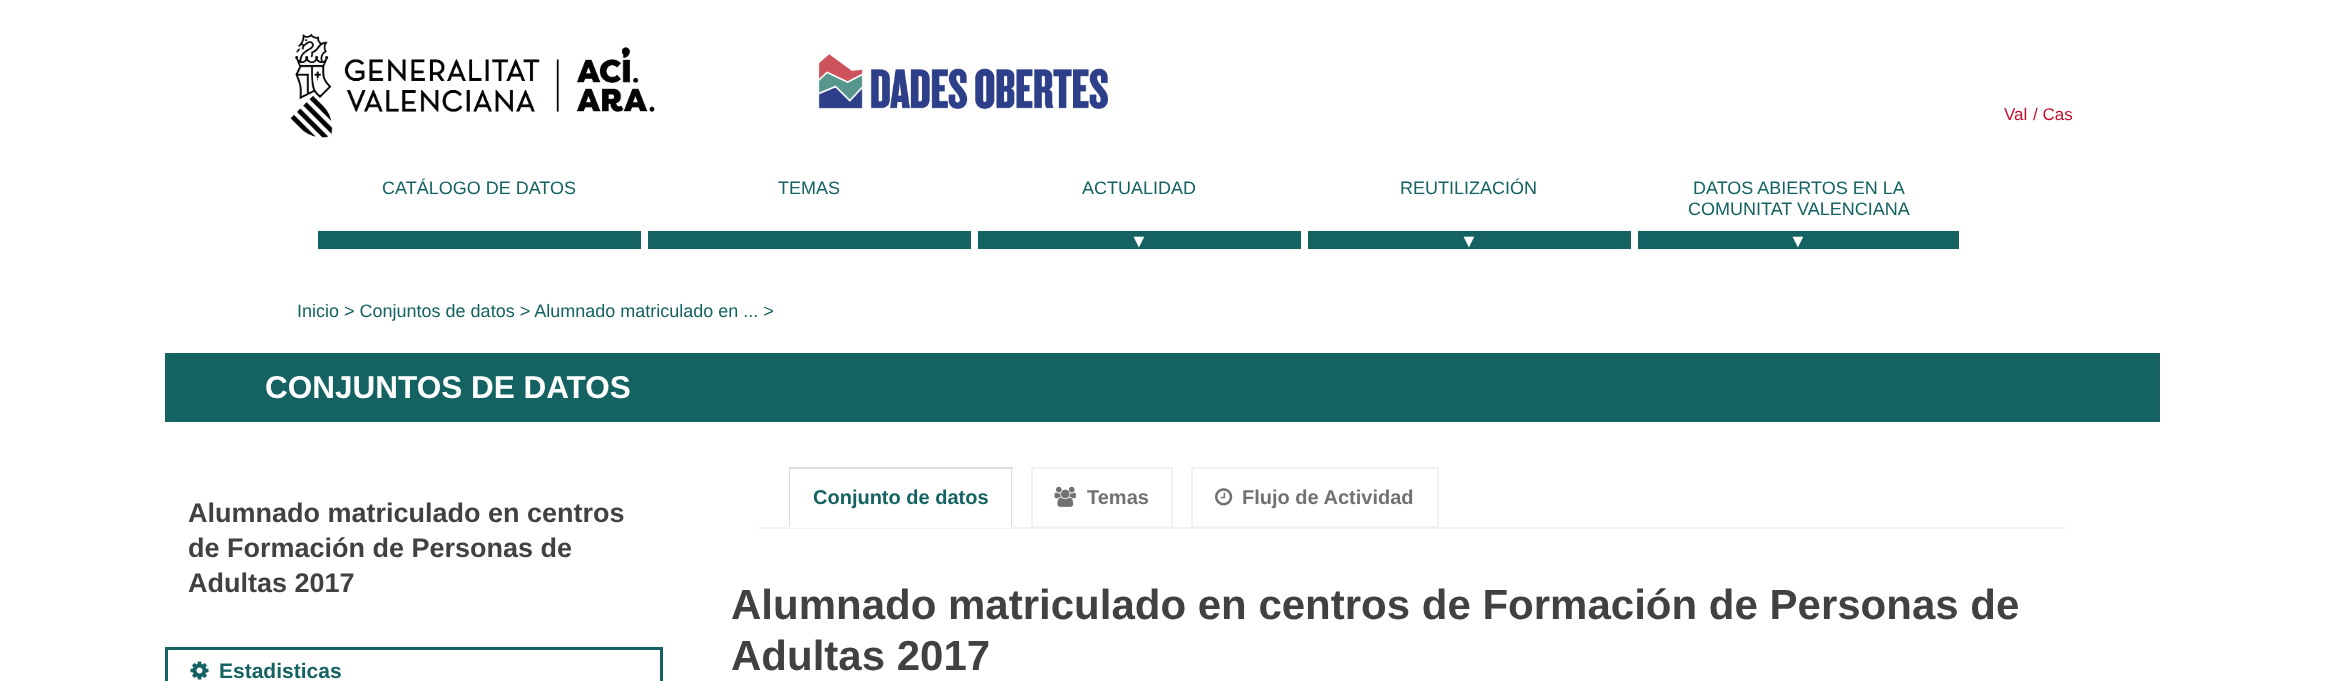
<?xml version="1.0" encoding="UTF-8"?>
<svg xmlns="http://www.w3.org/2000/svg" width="2325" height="681">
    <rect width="100%" height="100%" fill="#FFFFFF"/>
    <image x="290" y="33" width="365" height="105" href="img_01.png"/>
    <image x="818" y="54" width="290" height="55" href="img_02.png"/>
    <text x="2004" y="120" font-family="Liberation Sans" font-size="17" fill="#C70F2D">Val</text>
    <text x="2033" y="120" font-family="Liberation Sans" font-size="17" fill="#C70F2D">/ Cas</text>
    <text x="382" y="194" font-family="Liberation Sans" font-size="18" fill="#146362">CATÁLOGO DE DATOS</text>
    <rect x="318" y="231" width="323" height="18" fill="#146362"/>
    <text x="778" y="194" font-family="Liberation Sans" font-size="18" fill="#146362">TEMAS</text>
    <rect x="648" y="231" width="323" height="18" fill="#146362"/>
    <text x="1082" y="194" font-family="Liberation Sans" font-size="18" fill="#146362">ACTUALIDAD</text>
    <rect x="978" y="231" width="323" height="18" fill="#146362"/>
    <text x="1130" y="247" font-family="Liberation Sans" font-size="18" fill="#FFFFFF">▼</text>
    <text x="1400" y="194" font-family="Liberation Sans" font-size="18" fill="#146362">REUTILIZACIÓN</text>
    <rect x="1308" y="231" width="323" height="18" fill="#146362"/>
    <text x="1460" y="247" font-family="Liberation Sans" font-size="18" fill="#FFFFFF">▼</text>
    <text x="1693" y="194" font-family="Liberation Sans" font-size="18" fill="#146362">DATOS ABIERTOS EN LA</text>
    <text x="1688" y="215" font-family="Liberation Sans" font-size="18" fill="#146362">COMUNITAT VALENCIANA</text>
    <rect x="1638" y="231" width="321" height="18" fill="#146362"/>
    <text x="1789" y="247" font-family="Liberation Sans" font-size="18" fill="#FFFFFF">▼</text>
    <text x="297" y="317" font-family="Liberation Sans" font-size="18" fill="#146362">Inicio &gt; Conjuntos de datos &gt; Alumnado matriculado en ... &gt;</text>
    <rect x="165" y="353" width="1995" height="69" fill="#146362"/>
    <text x="265" y="398" font-family="Liberation Sans" font-size="31.5" font-weight="700" fill="#FFFFFF">CONJUNTOS DE DATOS</text>
    <text font-family="Liberation Sans" font-size="27" font-weight="700" fill="#414042">
        <tspan x="188" y="522">Alumnado matriculado en centros</tspan>
        <tspan x="188" y="557">de Formación de Personas de</tspan>
        <tspan x="188" y="592">Adultas 2017</tspan>
    </text>
    <rect x="166.5" y="648.5" width="495" height="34" fill="none" stroke="#146362" stroke-width="3"/>
    <image x="190" y="661" width="19" height="19" href="img_03.png"/>
    <text x="219" y="678" font-family="Liberation Sans" font-size="21" font-weight="700" fill="#146362">Estadisticas</text>
    <rect x="759" y="527" width="1307" height="2" fill="#F1F1F1"/>
    <rect x="789" y="527" width="224" height="1" fill="#FFFFFF"/>
    <rect x="789" y="467" width="224" height="2" fill="#DDDDDD"/>
    <path d="M 1012 466 V 528 L 1011 526 V 468 Z" fill="#DDDDDD"/>
    <path d="M 789 528 V 466 L 790 468 V 526 Z" fill="#DDDDDD"/>
    <text x="813" y="504" font-family="Liberation Sans" font-size="20" font-weight="700" fill="#146362">Conjunto de datos</text>
    <rect x="1032" y="468" width="140" height="59" fill="none" stroke="#F1F1F1" stroke-width="2"/>
    <image x="1054" y="486" width="22" height="21" href="img_04.png"/>
    <text x="1087" y="504" font-family="Liberation Sans" font-size="20" font-weight="700" fill="#707173">Temas</text>
    <rect x="1192" y="468" width="246" height="59" fill="none" stroke="#F1F1F1" stroke-width="2"/>
    <image x="1215" y="488" width="18" height="18" href="img_05.png"/>
    <text x="1242" y="504" font-family="Liberation Sans" font-size="20" font-weight="700" fill="#707173">Flujo de Actividad</text>
    <text font-family="Liberation Sans" font-size="42" font-weight="700" fill="#414042">
        <tspan x="731" y="619">Alumnado matriculado en centros de Formación de Personas de</tspan>
        <tspan x="731" y="670">Adultas 2017</tspan>
    </text>
</svg>
